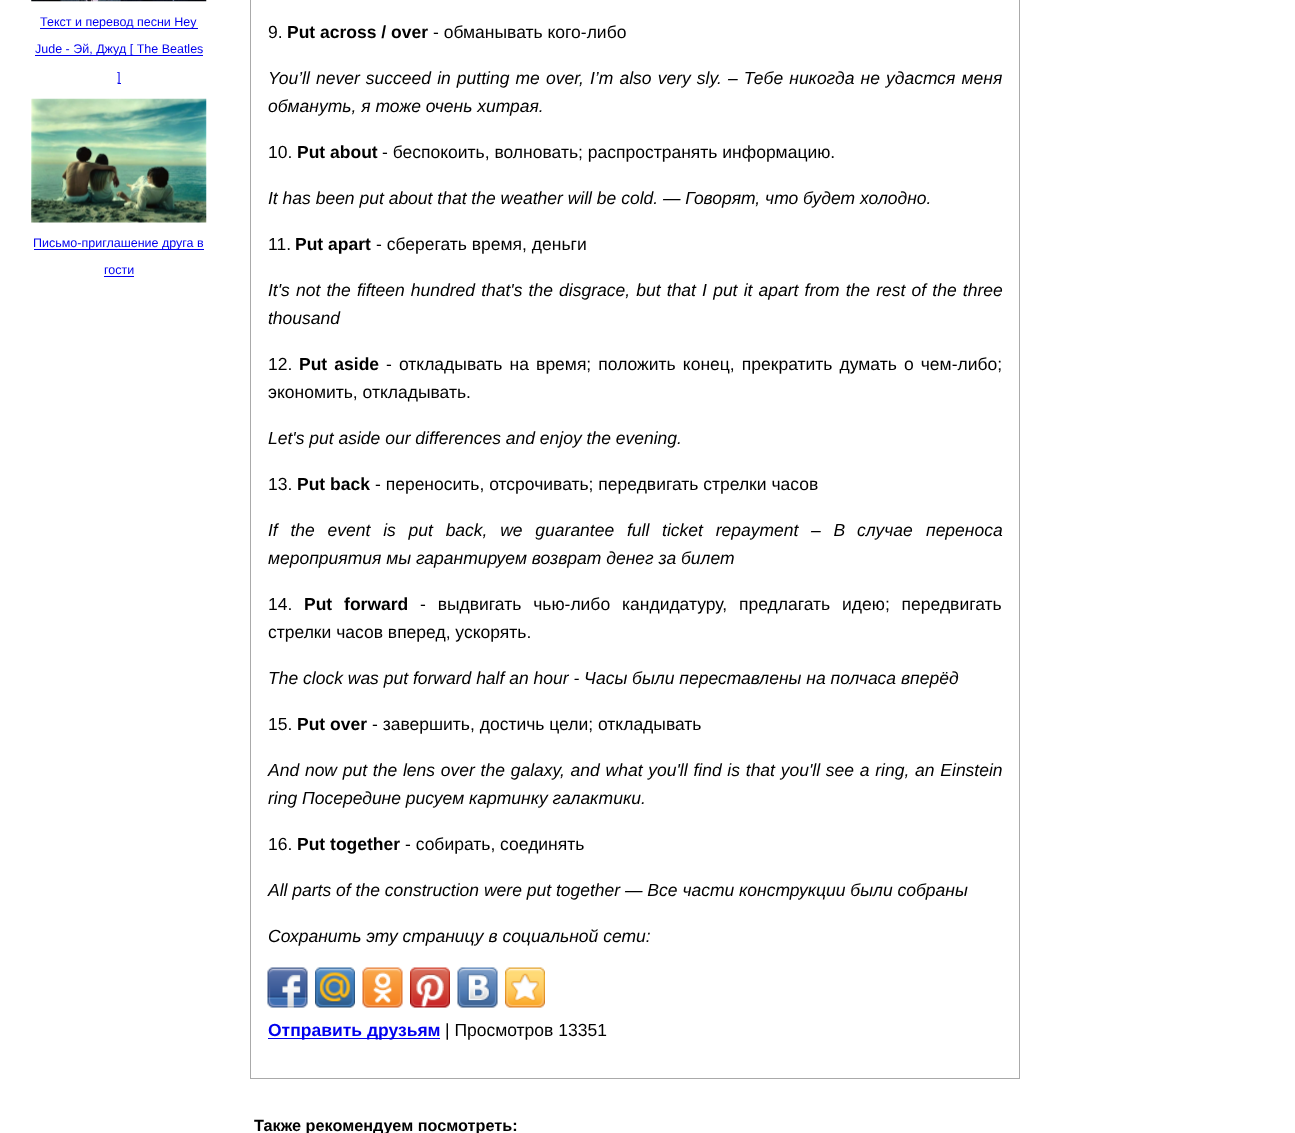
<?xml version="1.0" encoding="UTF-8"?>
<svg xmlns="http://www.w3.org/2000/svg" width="1295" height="1133">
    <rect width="100%" height="100%" fill="#FFFFFF"/>
    <image x="31" y="0" width="176" height="2" href="img_01.png"/>
    <rect x="40" y="28" width="158" height="1" fill="#0000EE"/>
    <text x="40" y="26" font-family="Liberation Sans" font-size="12.5" fill="#0000EE">Текст и перевод песни Hey</text>
    <rect x="35" y="55" width="168" height="1" fill="#0000EE"/>
    <text x="35" y="53" font-family="Liberation Sans" font-size="12.5" fill="#0000EE">Jude - Эй, Джуд [ The Beatles</text>
    <rect x="118" y="83" width="3" height="1" fill="#0000EE"/>
    <text x="117" y="81" font-family="Liberation Sans" font-size="12.5" fill="#0000EE">]</text>
    <image x="31" y="98" width="176" height="125" href="img_02.png"/>
    <rect x="34" y="249" width="170" height="1" fill="#0000EE"/>
    <text x="33" y="247" font-family="Liberation Sans" font-size="12.5" fill="#0000EE">Письмо-приглашение друга в</text>
    <text x="104" y="274" font-family="Liberation Sans" font-size="12.5" fill="#0000EE">гости</text>
    <rect x="104" y="276" width="30" height="1" fill="#0000EE"/>
    <rect x="250" y="0" width="770" height="1079" fill="#AAAAAA"/>
    <rect x="251" y="0" width="768" height="1078" fill="#FFFFFF"/>
    <text x="268" y="38" font-family="Liberation Sans" font-size="17.5" fill="#000000">9.</text>
    <text x="287" y="38" font-family="Liberation Sans" font-size="17.5" font-weight="700" fill="#000000">Put across / over</text>
    <text x="433" y="38" font-family="Liberation Sans" font-size="17.5" fill="#000000">- обманывать кого-либо</text>
    <text font-family="Liberation Sans" font-size="17.5" font-style="italic" fill="#000000">
        <tspan x="268" y="84" word-spacing="1.25">You’ll never succeed in putting me over, I’m also very sly. – Тебе никогда не удастся меня</tspan>
        <tspan x="268" y="112">обмануть, я тоже очень хитрая.</tspan>
    </text>
    <text x="268" y="158" font-family="Liberation Sans" font-size="17.5" fill="#000000">10.</text>
    <text x="297" y="158" font-family="Liberation Sans" font-size="17.5" font-weight="700" fill="#000000">Put about</text>
    <text x="382" y="158" font-family="Liberation Sans" font-size="17.5" fill="#000000">- беспокоить, волновать; распространять информацию.</text>
    <text x="268" y="204" font-family="Liberation Sans" font-size="17.5" font-style="italic" fill="#000000">It has been put about that the weather will be cold. — Говорят, что будет холодно.</text>
    <text x="268" y="250" font-family="Liberation Sans" font-size="17.5" fill="#000000">11.</text>
    <text x="295" y="250" font-family="Liberation Sans" font-size="17.5" font-weight="700" fill="#000000">Put apart</text>
    <text x="376" y="250" font-family="Liberation Sans" font-size="17.5" fill="#000000">- сберегать время, деньги</text>
    <text font-family="Liberation Sans" font-size="17.5" font-style="italic" fill="#000000">
        <tspan x="268" y="296" word-spacing="1.3">It's not the fifteen hundred that's the disgrace, but that I put it apart from the rest of the three</tspan>
        <tspan x="268" y="324">thousand</tspan>
    </text>
    <text x="268" y="370" font-family="Liberation Sans" font-size="17.5" fill="#000000">12.</text>
    <text x="299" y="370" word-spacing="2.25" font-family="Liberation Sans" font-size="17.5" font-weight="700" fill="#000000">Put aside</text>
    <text x="386" y="370" word-spacing="2.25" font-family="Liberation Sans" font-size="17.5" fill="#000000">- откладывать на время; положить конец, прекратить думать о чем-либо;</text>
    <text x="268" y="398" font-family="Liberation Sans" font-size="17.5" fill="#000000">экономить, откладывать.</text>
    <text x="268" y="444" font-family="Liberation Sans" font-size="17.5" font-style="italic" fill="#000000">Let's put aside our differences and enjoy the evening.</text>
    <text x="268" y="490" font-family="Liberation Sans" font-size="17.5" fill="#000000">13.</text>
    <text x="297" y="490" font-family="Liberation Sans" font-size="17.5" font-weight="700" fill="#000000">Put back</text>
    <text x="375" y="490" font-family="Liberation Sans" font-size="17.5" fill="#000000">- переносить, отсрочивать; передвигать стрелки часов</text>
    <text x="268" y="536" word-spacing="7.9" font-family="Liberation Sans" font-size="17.5" font-style="italic" fill="#000000">If the event is put back, we guarantee full ticket repayment – В</text>
    <text x="857" y="536" font-family="Liberation Sans" font-size="17.5" font-style="italic" fill="#000000">случае</text>
    <text x="926" y="536" font-family="Liberation Sans" font-size="17.5" font-style="italic" fill="#000000">переноса</text>
    <text x="268" y="564" font-family="Liberation Sans" font-size="17.5" font-style="italic" fill="#000000">мероприятия мы гарантируем возврат денег за билет</text>
    <text x="268" y="610" font-family="Liberation Sans" font-size="17.5" fill="#000000">14.</text>
    <text x="304" y="610" word-spacing="7" font-family="Liberation Sans" font-size="17.5" font-weight="700" fill="#000000">Put forward</text>
    <text x="420" y="610" word-spacing="7" font-family="Liberation Sans" font-size="17.5" fill="#000000">- выдвигать чью-либо кандидатуру, предлагать идею; передвигать</text>
    <text x="268" y="638" font-family="Liberation Sans" font-size="17.5" fill="#000000">стрелки часов вперед, ускорять.</text>
    <text x="268" y="684" font-family="Liberation Sans" font-size="17.5" font-style="italic" fill="#000000">The clock was put forward half an hour - Часы были переставлены на полчаса вперёд</text>
    <text x="268" y="730" font-family="Liberation Sans" font-size="17.5" fill="#000000">15.</text>
    <text x="297" y="730" font-family="Liberation Sans" font-size="17.5" font-weight="700" fill="#000000">Put over</text>
    <text x="372" y="730" font-family="Liberation Sans" font-size="17.5" fill="#000000">- завершить, достичь цели; откладывать</text>
    <text font-family="Liberation Sans" font-size="17.5" font-style="italic" fill="#000000">
        <tspan x="268" y="776" word-spacing="0.9">And now put the lens over the galaxy, and what you'll find is that you'll see a ring, an Einstein</tspan>
        <tspan x="268" y="804">ring Посередине рисуем картинку галактики.</tspan>
    </text>
    <text x="268" y="850" font-family="Liberation Sans" font-size="17.5" fill="#000000">16.</text>
    <text x="297" y="850" font-family="Liberation Sans" font-size="17.5" font-weight="700" fill="#000000">Put together</text>
    <text x="405" y="850" font-family="Liberation Sans" font-size="17.5" fill="#000000">- собирать, соединять</text>
    <text x="268" y="896" font-family="Liberation Sans" font-size="17.5" font-style="italic" fill="#000000">All parts of the construction were put together — Все части конструкции были собраны</text>
    <text x="268" y="942" font-family="Liberation Sans" font-size="17.5" font-style="italic" fill="#000000">Сохранить эту страницу в социальной сети:</text>
    <image x="267" y="967" width="41" height="41" href="img_03.png"/>
    <image x="315" y="967" width="40" height="41" href="img_04.png"/>
    <image x="362" y="967" width="41" height="41" href="img_05.png"/>
    <image x="410" y="967" width="40" height="41" href="img_06.png"/>
    <image x="457" y="967" width="41" height="41" href="img_07.png"/>
    <image x="505" y="967" width="40" height="41" href="img_08.png"/>
    <rect x="268" y="1038" width="172" height="1" fill="#0000EE"/>
    <text x="268" y="1036" font-family="Liberation Sans" font-size="17.5" font-weight="700" fill="#0000EE">Отправить друзьям</text>
    <text x="445" y="1036" font-family="Liberation Sans" font-size="17.5" fill="#000000">| Просмотров 13351</text>
    <text x="254" y="1131" font-family="Liberation Sans" font-size="16.25" font-weight="700" fill="#000000">Также рекомендуем посмотреть:</text>
</svg>
